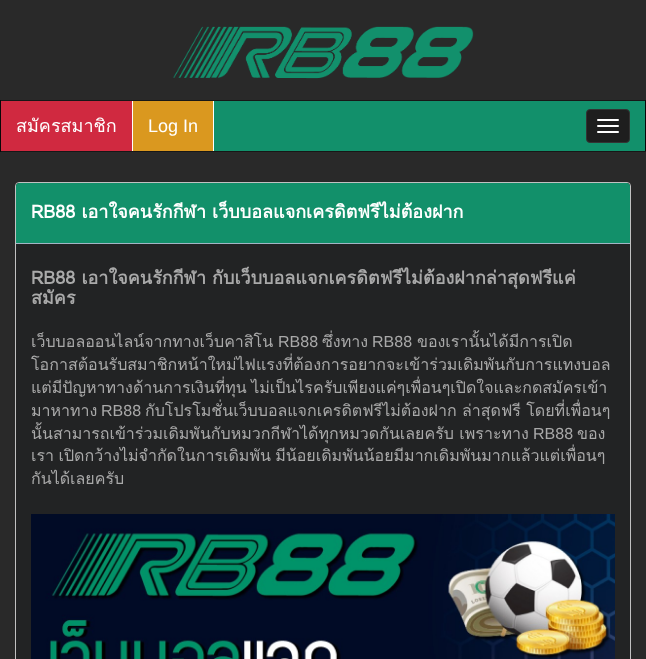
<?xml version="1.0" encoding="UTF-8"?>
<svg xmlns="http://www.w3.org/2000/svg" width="646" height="659">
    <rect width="100%" height="100%" fill="#292929"/>
    <image x="173" y="26" width="301" height="53" href="img_01.png"/>
    <rect x="214" y="101" width="431" height="50" fill="#12906B"/>
    <rect x="0" y="100" width="646" height="1" fill="#171717"/>
    <rect x="645" y="100" width="1" height="52" fill="#080808"/>
    <rect x="0" y="151" width="646" height="1" fill="#171717"/>
    <rect x="0" y="100" width="1" height="52" fill="#080808"/>
    <rect x="1" y="101" width="131" height="50" fill="#D02940"/>
    <rect x="132" y="101" width="1" height="50" fill="#FFFFFF"/>
    <text x="16" y="132" font-family="Loma" font-size="18" fill="#FFFFFF">สมัครสมาชิก</text>
    <rect x="133" y="101" width="80" height="50" fill="#DA981F"/>
    <rect x="213" y="101" width="1" height="50" fill="#FFFFFF"/>
    <text x="148" y="132" font-family="Liberation Sans" font-size="18" fill="#FFFFFF">Log In</text>
    <rect x="586.5" y="109.5" width="43" height="33" rx="3.5" fill="#1E1E1E" stroke="#333333"/>
    <rect x="597" y="119" width="22" height="2" rx="1" fill="#FFFFFF"/>
    <rect x="597" y="125" width="22" height="2" rx="1" fill="#FFFFFF"/>
    <rect x="597" y="131" width="22" height="2" rx="1" fill="#FFFFFF"/>
    <rect x="15.5" y="182.5" width="615" height="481" rx="3.5" fill="#222324" stroke="#C1C1C1"/>
    <path d="M 19 183 H 627 C 628.5 183 630 184.5 630 186 V 244 H 16 V 186 C 16 184.5 17.5 183 19 183 Z" fill="#12906A"/>
    <rect x="16" y="243" width="614" height="1" fill="#A2B5C5"/>
    <text x="31" y="218" font-family="Loma" font-size="18" font-weight="700" fill="#FFFFFF">RB88 เอาใจคนรักกีฬา เว็บบอลแจกเครดิตฟรีไม่ต้องฝาก</text>
    <text font-family="Loma" font-size="18" font-weight="700" fill="#A9A9A9">
        <tspan x="31" y="284">RB88 เอาใจคนรักกีฬา กับเว็บบอลแจกเครดิตฟรีไม่ต้องฝากล่าสุดฟรีแค่</tspan>
        <tspan x="31" y="304">สมัคร</tspan>
    </text>
    <text x="31" y="347" font-family="Loma" font-size="16" fill="#A9A9A9">เว็บบอลออนไลน์จากทางเว็บคาสิโน</text>
    <text x="278" y="347" font-family="Liberation Sans" font-size="16" fill="#A9A9A9">RB88</text>
    <text x="322" y="347" font-family="Loma" font-size="16" fill="#A9A9A9">ซึ่งทาง</text>
    <text x="372" y="347" font-family="Liberation Sans" font-size="16" fill="#A9A9A9">RB88</text>
    <text x="417" y="347" font-family="Loma" font-size="16" fill="#A9A9A9">ของเรานั้นได้มีการเปิด</text>
    <text font-family="Loma" font-size="16" fill="#A9A9A9">
        <tspan x="31" y="370">โอกาสต้อนรับสมาชิกหน้าใหม่ไฟแรงที่ต้องการอยากจะเข้าร่วมเดิมพันกับการแทงบอล</tspan>
        <tspan x="31" y="393" word-spacing="-1">แต่มีปัญหาทางด้านการเงินที่ทุน ไม่เป็นไรครับเพียงแค่ๆเพื่อนๆเปิดใจและกดสมัครเข้า</tspan>
        <tspan x="31" y="416">มาหาทาง</tspan>
    </text>
    <text x="101" y="416" font-family="Liberation Sans" font-size="16" fill="#A9A9A9">RB88</text>
    <text x="145" y="416" font-family="Loma" font-size="16" fill="#A9A9A9">กับโปรโมชั่นเว็บบอลแจกเครดิตฟรีไม่ต้องฝาก ล่าสุดฟรี โดยที่เพื่อนๆ</text>
    <text x="31" y="439" font-family="Loma" font-size="16" fill="#A9A9A9">นั้นสามารถเข้าร่วมเดิมพันกับหมวกกีฬาได้ทุกหมวดกันเลยครับ เพราะทาง</text>
    <text x="533" y="439" font-family="Liberation Sans" font-size="16" fill="#A9A9A9">RB88</text>
    <text x="577" y="439" font-family="Loma" font-size="16" fill="#A9A9A9">ของ</text>
    <text font-family="Loma" font-size="16" fill="#A9A9A9">
        <tspan x="31" y="461" word-spacing="-1">เรา เปิดกว้างไม่จำกัดในการเดิมพัน มีน้อยเดิมพันน้อยมีมากเดิมพันมากแล้วแต่เพื่อนๆ</tspan>
        <tspan x="31" y="484">กันได้เลยครับ</tspan>
    </text>
    <image x="31" y="514" width="584" height="145" href="img_02.png"/>
</svg>
